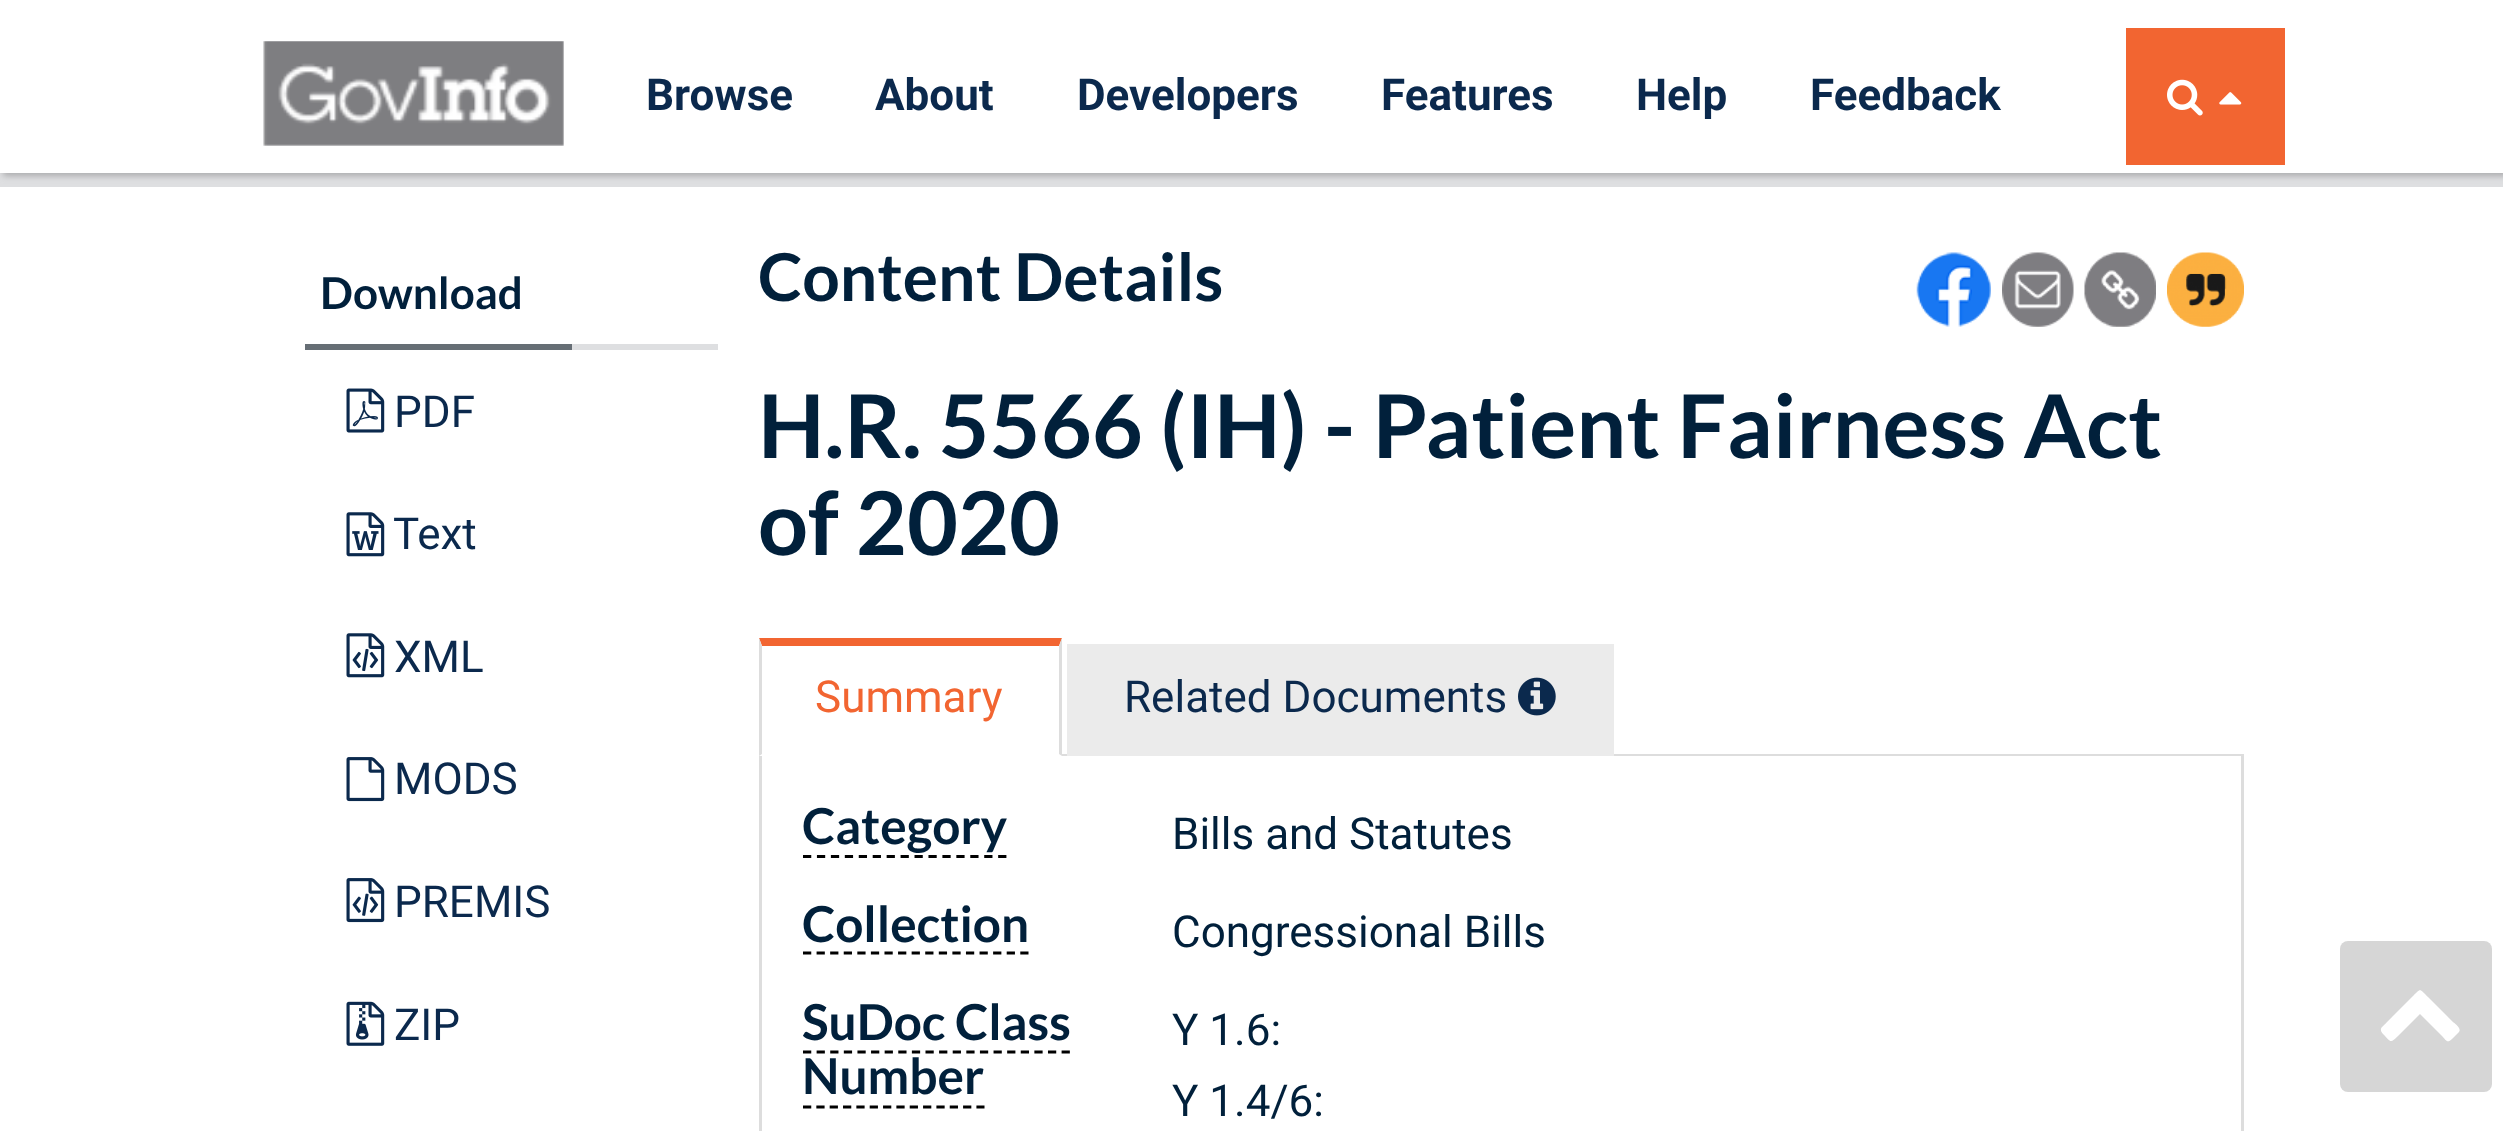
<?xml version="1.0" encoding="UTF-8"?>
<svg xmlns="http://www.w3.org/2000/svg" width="2503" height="1131">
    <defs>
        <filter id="blur1" x="-50%" y="-200%" width="200%" height="500%"><feGaussianBlur stdDeviation="3"/></filter>
    </defs>
    <rect width="100%" height="100%" fill="#FFFFFF"/>
    <rect x="0" y="173" width="2503" height="14" fill="#DEDFE1"/>
    <rect x="3" y="3" width="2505" height="173" fill="#ACACAE" filter="url(#blur1)"/>
    <rect x="0" y="0" width="2503" height="173" fill="#FFFFFF"/>
    <image x="263" y="41" width="301" height="105" href="img_01.png"/>
    <text x="646" y="110" font-family="Roboto" font-size="44" font-weight="700" fill="#0B294D">Browse</text>
    <text x="875" y="110" font-family="Roboto" font-size="44" font-weight="700" fill="#0B294D">About</text>
    <text x="1077" y="110" font-family="Roboto" font-size="44" font-weight="700" fill="#0B294D">Developers</text>
    <text x="1381" y="110" font-family="Roboto" font-size="44" font-weight="700" fill="#0B294D">Features</text>
    <text x="1636" y="110" font-family="Roboto" font-size="44" font-weight="700" fill="#0B294D">Help</text>
    <text x="1810" y="110" font-family="Roboto" font-size="44" font-weight="700" fill="#0B294D">Feedback</text>
    <rect x="2126" y="28" width="159" height="137" fill="#F26531"/>
    <image x="2167" y="79" width="36" height="37" href="img_02.png"/>
    <image x="2219" y="92" width="23" height="13" href="img_03.png"/>
    <rect x="572" y="344" width="146" height="6" fill="#DEDFE1"/>
    <text x="320" y="309" font-family="Lato" font-size="44" font-weight="700" fill="#01203B">Download</text>
    <rect x="305" y="344" width="267" height="6" fill="#666E75"/>
    <image x="346" y="388" width="39" height="45" href="img_04.png"/>
    <text x="394" y="427" font-family="Roboto" font-size="44" fill="#0B294D">PDF</text>
    <image x="346" y="512" width="39" height="45" href="img_05.png"/>
    <text x="393" y="549" font-family="Roboto" font-size="44" fill="#0B294D">Text</text>
    <image x="346" y="633" width="39" height="45" href="img_06.png"/>
    <text x="394" y="672" font-family="Roboto" font-size="44" fill="#0B294D">XML</text>
    <image x="346" y="757" width="39" height="45" href="img_07.png"/>
    <text x="394" y="794" font-family="Roboto" font-size="44" fill="#0B294D">MODS</text>
    <image x="346" y="878" width="39" height="45" href="img_08.png"/>
    <text x="394" y="917" font-family="Roboto" font-size="44" fill="#0B294D">PREMIS</text>
    <image x="346" y="1001" width="39" height="45" href="img_09.png"/>
    <text x="394" y="1040" font-family="Roboto" font-size="44" fill="#0B294D">ZIP</text>
    <text x="758" y="301" font-family="Lato" font-size="66" font-weight="700" fill="#01203B">Content Details</text>
    <image x="1916" y="252" width="75" height="75" href="img_10.png"/>
    <image x="2002" y="252" width="72" height="75" href="img_11.png"/>
    <image x="2084" y="252" width="72" height="75" href="img_12.png"/>
    <image x="2167" y="252" width="77" height="75" href="img_13.png"/>
    <text font-family="Lato" font-size="88" font-weight="700" fill="#01203B">
        <tspan x="758" y="458">H.R. 5566 (IH) - Patient Fairness Act</tspan>
        <tspan x="758" y="555">of 2020</tspan>
    </text>
    <rect x="1062" y="754" width="1182" height="2" fill="#DDDDDD"/>
    <path d="M 759 638 H 1062 L 1059 646 H 762 Z" fill="#F26531"/>
    <path d="M 1062 638 V 756 L 1059 754 V 646 Z" fill="#DDDDDD"/>
    <path d="M 759 756 V 638 L 762 646 V 754 Z" fill="#DDDDDD"/>
    <text x="815" y="712" font-family="Roboto" font-size="44" fill="#F26531">Summary</text>
    <rect x="1067" y="644" width="547" height="112" fill="#EBEBEB"/>
    <text x="1124" y="712" font-family="Roboto" font-size="44" fill="#0B294D">Related Documents</text>
    <image x="1518" y="677" width="38" height="39" href="img_14.png"/>
    <rect x="2241" y="756" width="3" height="375" fill="#DDDDDD"/>
    <rect x="759" y="756" width="3" height="375" fill="#DDDDDD"/>
    <text x="802" y="844" font-family="Lato" font-size="49.5" font-weight="700" fill="#01203B">Category</text>
    <path d="M 803 856.5 H 1006.5" fill="none" stroke="#000000" stroke-width="2.8" stroke-dasharray="8.25 5.69"/>
    <text x="1172" y="849" font-family="Roboto" font-size="44" fill="#01203B">Bills and Statutes</text>
    <text x="802" y="942" font-family="Lato" font-size="49.5" font-weight="700" fill="#01203B">Collection</text>
    <path d="M 803 953 H 1028.5" fill="none" stroke="#000000" stroke-width="2.8" stroke-dasharray="8.25 5.33"/>
    <text x="1172" y="947" font-family="Roboto" font-size="44" fill="#01203B">Congressional Bills</text>
    <text font-family="Lato" font-size="49.5" font-weight="700" fill="#01203B">
        <tspan x="802" y="1040">SuDoc Class</tspan>
        <tspan x="802" y="1094">Number</tspan>
    </text>
    <path d="M 803 1052 H 1070" fill="none" stroke="#000000" stroke-width="2.8" stroke-dasharray="8.25 5.36"/>
    <path d="M 803 1107 H 984.5" fill="none" stroke="#000000" stroke-width="2.8" stroke-dasharray="8.25 5.09"/>
    <text font-family="Roboto" font-size="44" fill="#01203B">
        <tspan x="1172" y="1045">Y 1.6:</tspan>
        <tspan x="1172" y="1116">Y 1.4/6:</tspan>
    </text>
    <rect x="2340" y="941" width="152" height="151" rx="8" fill="#D6D6D6"/>
    <path d="M 2459 1032 L 2452 1039 C 2447 1044 2446 1040 2442 1036 L 2420 1014 L 2398 1036 C 2390 1044 2391 1042 2383 1034 C 2378 1028 2383 1027 2387 1022 L 2412 997 C 2421 988 2419 988 2428 997 L 2453 1022 C 2454 1023 2462 1028 2459 1032 Z" fill="#FFFFFF"/>
</svg>
